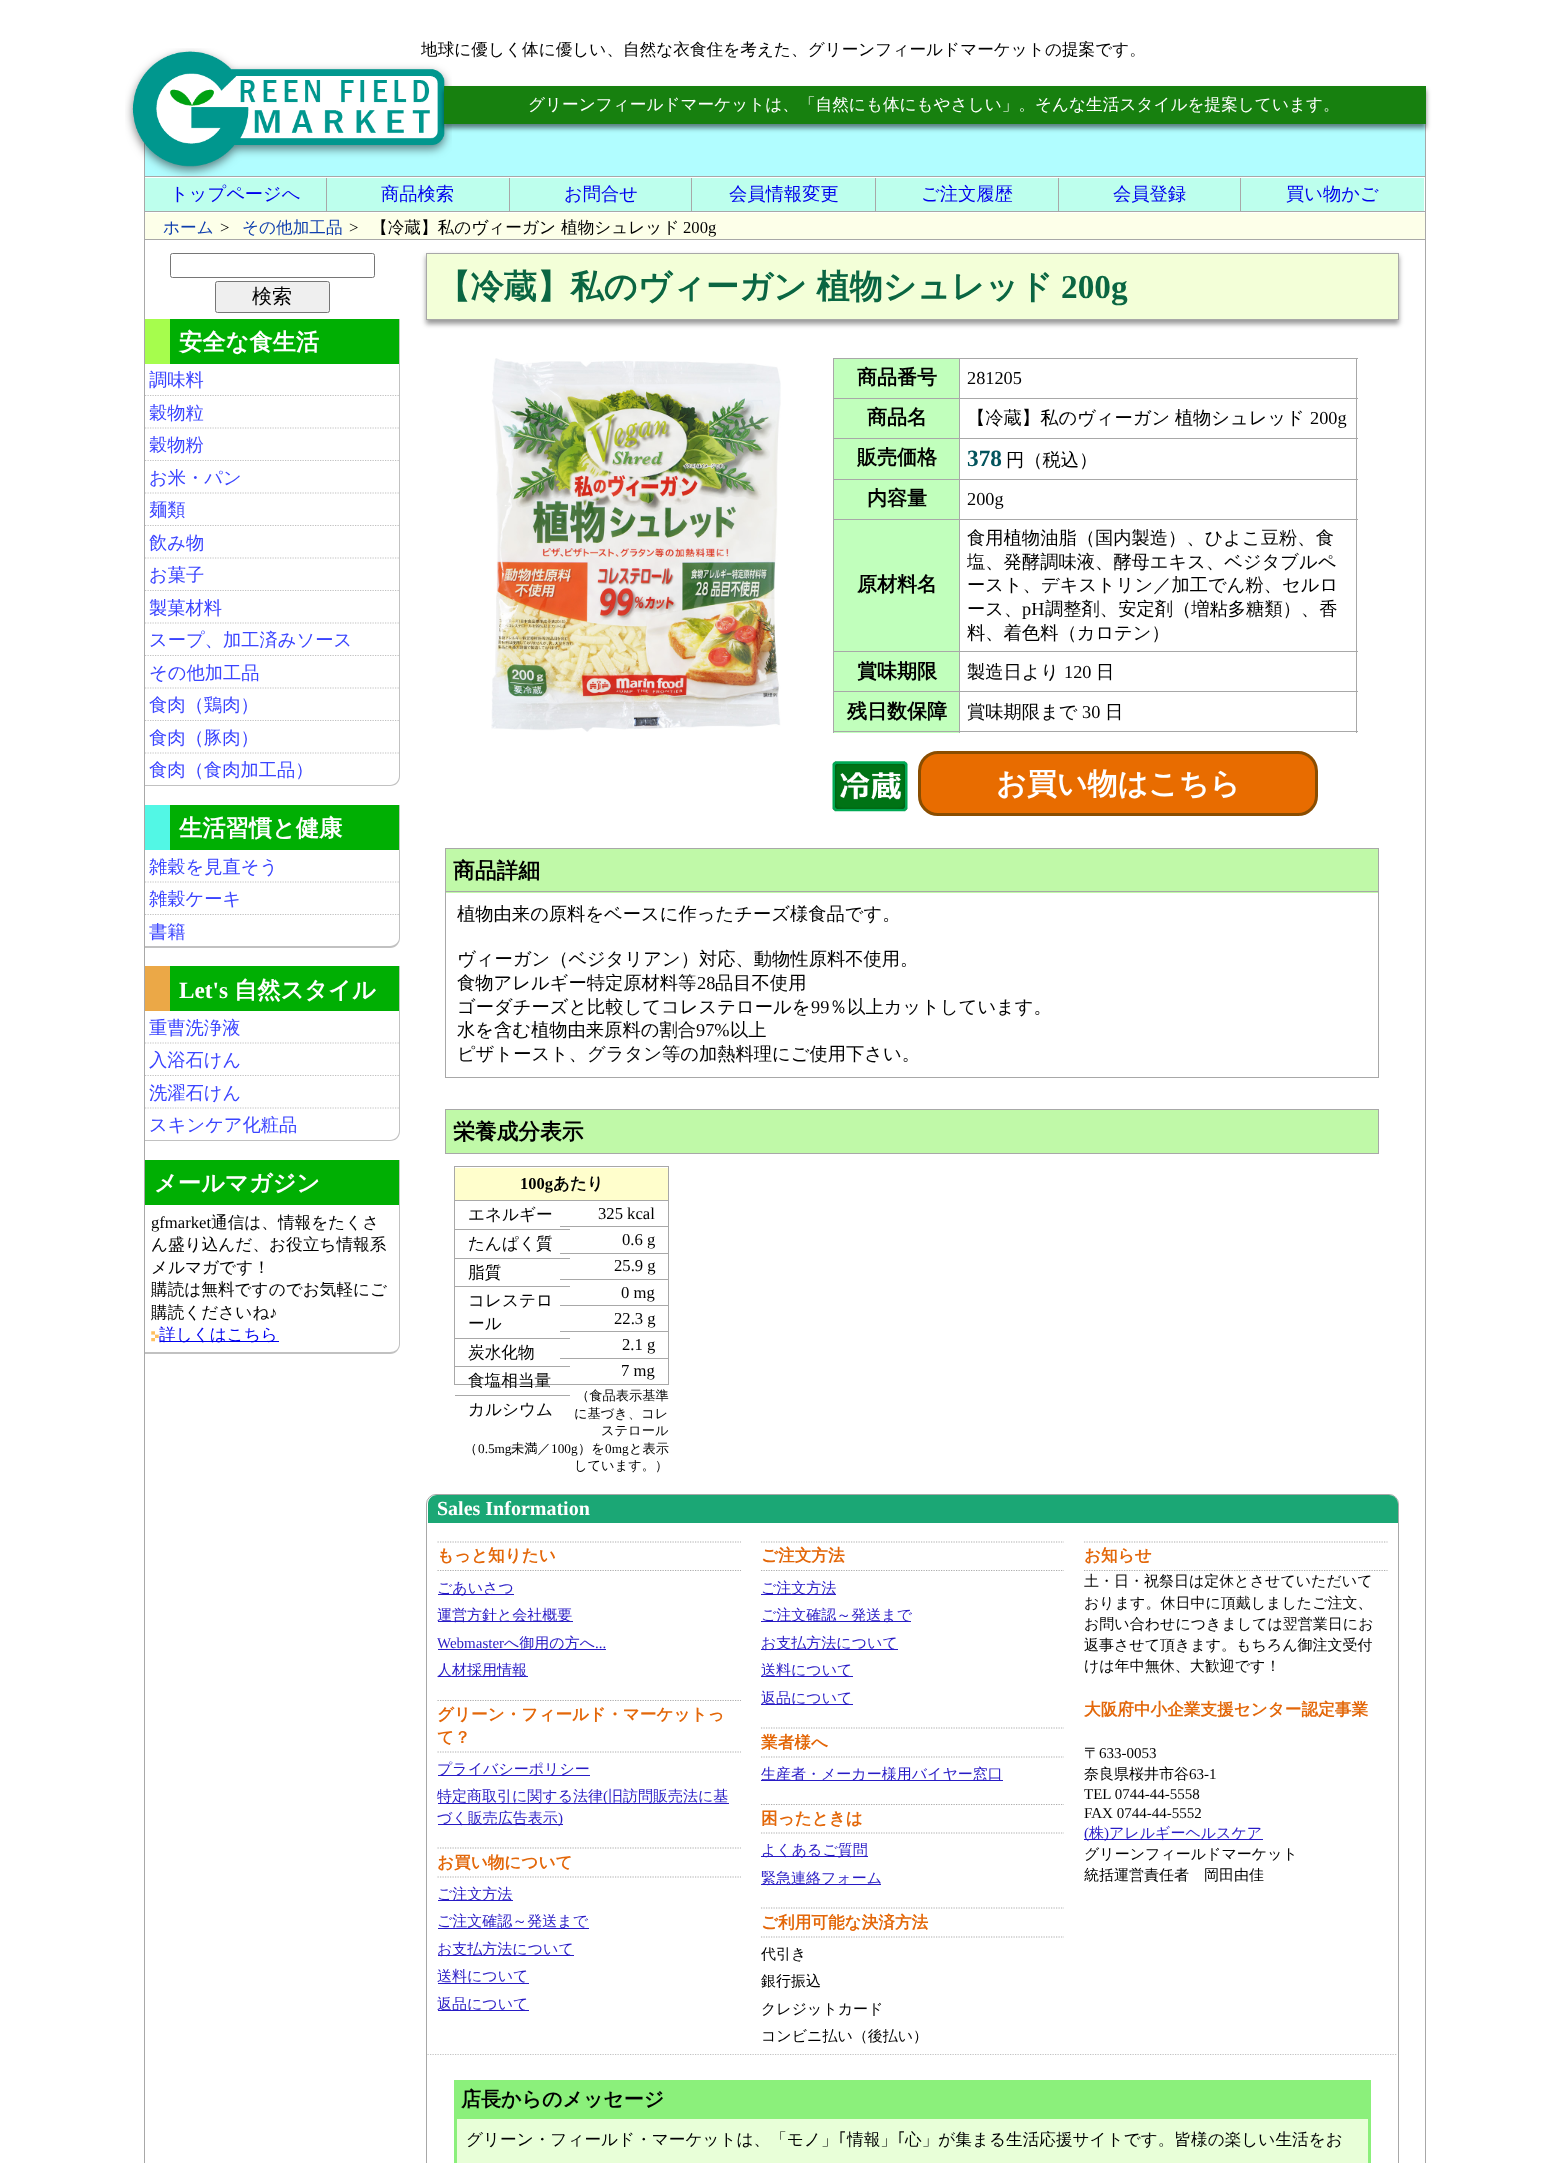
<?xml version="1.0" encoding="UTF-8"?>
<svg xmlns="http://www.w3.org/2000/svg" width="1568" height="2163">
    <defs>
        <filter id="blur1" x="-50%" y="-200%" width="200%" height="500%"><feGaussianBlur stdDeviation="2.5"/></filter>
    </defs>
    <rect width="100%" height="100%" fill="#FFFFFF"/>
    <rect x="144.5" y="100.5" width="1281" height="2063" fill="none" stroke="#A8A8A8"/>
    <rect x="145" y="124" width="1280" height="52" fill="#B1FDFF"/>
    <text x="421" y="55" font-family="WenQuanYi Zen Hei" font-size="16.65" font-weight="500" fill="#000000">地球に優しく体に優しい、自然な衣食住を考えた、グリーンフィールドマーケットの提案です。</text>
    <rect x="145" y="176" width="1280" height="1" fill="#A8A8A8"/>
    <image x="125" y="48" width="327" height="130" href="img_01.png"/>
    <rect x="444" y="90" width="982" height="38" fill="#000000" fill-opacity="0.5" filter="url(#blur1)"/>
    <rect x="444" y="86" width="982" height="38" fill="#17800F"/>
    <text x="528" y="110" font-family="WenQuanYi Zen Hei" font-size="16.65" font-weight="500" fill="#FFFFFF">グリーンフィールドマーケットは、「自然にも体にもやさしい」。そんな生活スタイルを提案しています。</text>
    <rect x="145" y="211" width="1280" height="1" fill="#A8A8A8"/>
    <rect x="145" y="178" width="364" height="33" fill="#BDFFED"/>
    <rect x="326" y="178" width="1" height="33" fill="#A8A8A8"/>
    <text x="170" y="200" font-family="WenQuanYi Zen Hei" font-size="18.3" font-weight="500" fill="#0000EE">トップページへ</text>
    <rect x="509" y="178" width="1" height="33" fill="#A8A8A8"/>
    <text x="381" y="200" font-family="WenQuanYi Zen Hei" font-size="18.3" font-weight="500" fill="#0000EE">商品検索</text>
    <rect x="510" y="178" width="365" height="33" fill="#BDFFED"/>
    <rect x="691" y="178" width="1" height="33" fill="#A8A8A8"/>
    <text x="564" y="200" font-family="WenQuanYi Zen Hei" font-size="18.3" font-weight="500" fill="#0000EE">お問合せ</text>
    <rect x="875" y="178" width="1" height="33" fill="#A8A8A8"/>
    <text x="729" y="200" font-family="WenQuanYi Zen Hei" font-size="18.3" font-weight="500" fill="#0000EE">会員情報変更</text>
    <rect x="876" y="178" width="182" height="33" fill="#BDFFED"/>
    <rect x="1058" y="178" width="1" height="33" fill="#A8A8A8"/>
    <text x="921" y="200" font-family="WenQuanYi Zen Hei" font-size="18.3" font-weight="500" fill="#0000EE">ご注文履歴</text>
    <rect x="1059" y="178" width="181" height="33" fill="#BDFFED"/>
    <rect x="1240" y="178" width="1" height="33" fill="#A8A8A8"/>
    <text x="1113" y="200" font-family="WenQuanYi Zen Hei" font-size="18.3" font-weight="500" fill="#0000EE">会員登録</text>
    <rect x="1241" y="178" width="183" height="33" fill="#BDFFED"/>
    <text x="1286" y="200" font-family="WenQuanYi Zen Hei" font-size="18.3" font-weight="500" fill="#0000EE">買い物かご</text>
    <rect x="145" y="213" width="1280" height="26" fill="#FDFFE9"/>
    <rect x="145" y="239" width="1280" height="1" fill="#A8A8A8"/>
    <text x="163" y="233" font-family="WenQuanYi Zen Hei" font-size="16.65" font-weight="500" fill="#0D3DAD">ホーム</text>
    <text x="220" y="233" font-family="Liberation Serif" font-size="16.65" fill="#000000">&gt;</text>
    <text x="242" y="233" font-family="WenQuanYi Zen Hei" font-size="16.65" font-weight="500" fill="#0D3DAD">その他加工品</text>
    <text x="349" y="233" font-family="Liberation Serif" font-size="16.65" fill="#000000">&gt;</text>
    <text x="371" y="233" font-family="WenQuanYi Zen Hei" font-size="16.65" font-weight="500" fill="#000000">【冷蔵】私のヴィーガン 植物シュレッド</text>
    <text x="683" y="233" font-family="Liberation Serif" font-size="16.65" fill="#000000">200g</text>
    <rect x="170.5" y="253.5" width="204" height="24" rx="2" fill="none" stroke="#767676"/>
    <rect x="215.5" y="281.5" width="114" height="31" rx="2" fill="#EFEFEF" stroke="#767676"/>
    <text x="252" y="303" font-family="WenQuanYi Zen Hei" font-size="20" font-weight="500" fill="#000000">検索</text>
    <rect x="399" y="319" width="1" height="435" fill="#C1C1C1"/>
    <rect x="145" y="319" width="25" height="45" fill="#A6FD4D"/>
    <rect x="170" y="319" width="229" height="45" fill="#00AF03"/>
    <text x="179" y="350" font-family="WenQuanYi Zen Hei" font-size="23.25" font-weight="700" fill="#FFFFFF">安全な食生活</text>
    <path d="M 145 395.5 H 400" fill="none" stroke="#C1C1C1" stroke-width="1.2" stroke-dasharray="1.25 1.25"/>
    <text x="149" y="386" font-family="WenQuanYi Zen Hei" font-size="18.3" font-weight="500" fill="#3A44FF">調味料</text>
    <path d="M 145 428 H 400" fill="none" stroke="#C1C1C1" stroke-width="1.2" stroke-dasharray="1.25 1.25"/>
    <text x="149" y="419" font-family="WenQuanYi Zen Hei" font-size="18.3" font-weight="500" fill="#3A44FF">穀物粒</text>
    <path d="M 145 460.5 H 400" fill="none" stroke="#C1C1C1" stroke-width="1.2" stroke-dasharray="1.25 1.25"/>
    <text x="149" y="451" font-family="WenQuanYi Zen Hei" font-size="18.3" font-weight="500" fill="#3A44FF">穀物粉</text>
    <path d="M 145 493 H 400" fill="none" stroke="#C1C1C1" stroke-width="1.2" stroke-dasharray="1.25 1.25"/>
    <text x="149" y="484" font-family="WenQuanYi Zen Hei" font-size="18.3" font-weight="500" fill="#3A44FF">お米・パン</text>
    <path d="M 145 525.5 H 400" fill="none" stroke="#C1C1C1" stroke-width="1.2" stroke-dasharray="1.25 1.25"/>
    <text x="149" y="516" font-family="WenQuanYi Zen Hei" font-size="18.3" font-weight="500" fill="#3A44FF">麺類</text>
    <path d="M 145 558 H 400" fill="none" stroke="#C1C1C1" stroke-width="1.2" stroke-dasharray="1.25 1.25"/>
    <text x="149" y="549" font-family="WenQuanYi Zen Hei" font-size="18.3" font-weight="500" fill="#3A44FF">飲み物</text>
    <path d="M 145 590.5 H 400" fill="none" stroke="#C1C1C1" stroke-width="1.2" stroke-dasharray="1.25 1.25"/>
    <text x="149" y="581" font-family="WenQuanYi Zen Hei" font-size="18.3" font-weight="500" fill="#3A44FF">お菓子</text>
    <path d="M 145 623 H 400" fill="none" stroke="#C1C1C1" stroke-width="1.2" stroke-dasharray="1.25 1.25"/>
    <text x="149" y="614" font-family="WenQuanYi Zen Hei" font-size="18.3" font-weight="500" fill="#3A44FF">製菓材料</text>
    <path d="M 145 655.5 H 400" fill="none" stroke="#C1C1C1" stroke-width="1.2" stroke-dasharray="1.25 1.25"/>
    <text x="149" y="646" font-family="WenQuanYi Zen Hei" font-size="18.3" font-weight="500" fill="#3A44FF">スープ、加工済みソース</text>
    <path d="M 145 688 H 400" fill="none" stroke="#C1C1C1" stroke-width="1.2" stroke-dasharray="1.25 1.25"/>
    <text x="149" y="679" font-family="WenQuanYi Zen Hei" font-size="18.3" font-weight="500" fill="#3A44FF">その他加工品</text>
    <path d="M 145 720.5 H 400" fill="none" stroke="#C1C1C1" stroke-width="1.2" stroke-dasharray="1.25 1.25"/>
    <text x="149" y="711" font-family="WenQuanYi Zen Hei" font-size="18.3" font-weight="500" fill="#3A44FF">食肉（鶏肉）</text>
    <path d="M 145 753 H 400" fill="none" stroke="#C1C1C1" stroke-width="1.2" stroke-dasharray="1.25 1.25"/>
    <text x="149" y="744" font-family="WenQuanYi Zen Hei" font-size="18.3" font-weight="500" fill="#3A44FF">食肉（豚肉）</text>
    <path d="M 145 754 H 400 V 776 C 400 782 396 786 390 786 H 145 Z M 145 754 H 399 V 776 C 399 781 395 785 390 785 H 145 Z" fill="#C1C1C1" fill-rule="evenodd"/>
    <text x="149" y="776" font-family="WenQuanYi Zen Hei" font-size="18.3" font-weight="500" fill="#3A44FF">食肉（食肉加工品）</text>
    <rect x="399" y="805" width="1" height="110" fill="#C1C1C1"/>
    <rect x="145" y="805" width="25" height="45" fill="#52F7E5"/>
    <rect x="170" y="805" width="229" height="45" fill="#00AF03"/>
    <text x="179" y="836" font-family="WenQuanYi Zen Hei" font-size="23.25" font-weight="700" fill="#FFFFFF">生活習慣と健康</text>
    <path d="M 145 882 H 400" fill="none" stroke="#C1C1C1" stroke-width="1.2" stroke-dasharray="1.25 1.25"/>
    <text x="149" y="873" font-family="WenQuanYi Zen Hei" font-size="18.3" font-weight="500" fill="#3A44FF">雑穀を見直そう</text>
    <path d="M 145 914.5 H 400" fill="none" stroke="#C1C1C1" stroke-width="1.2" stroke-dasharray="1.25 1.25"/>
    <text x="149" y="905" font-family="WenQuanYi Zen Hei" font-size="18.3" font-weight="500" fill="#3A44FF">雑穀ケーキ</text>
    <path d="M 145 915 H 400 V 938 C 400 943 396 948 390 948 H 145 Z M 145 915 H 399 V 938 C 399 942 395 946 390 946 H 145 Z" fill="#C1C1C1" fill-rule="evenodd"/>
    <text x="149" y="938" font-family="WenQuanYi Zen Hei" font-size="18.3" font-weight="500" fill="#3A44FF">書籍</text>
    <rect x="399" y="966" width="1" height="143" fill="#C1C1C1"/>
    <rect x="145" y="966" width="25" height="45" fill="#EBA847"/>
    <rect x="170" y="966" width="229" height="45" fill="#00AF03"/>
    <text x="179" y="998" font-family="Liberation Serif" font-size="23.25" font-weight="700" fill="#FFFFFF">Let's</text>
    <text x="234" y="998" font-family="WenQuanYi Zen Hei" font-size="23.25" font-weight="700" fill="#FFFFFF">自然スタイル</text>
    <path d="M 145 1043 H 400" fill="none" stroke="#C1C1C1" stroke-width="1.2" stroke-dasharray="1.25 1.25"/>
    <text x="149" y="1034" font-family="WenQuanYi Zen Hei" font-size="18.3" font-weight="500" fill="#3A44FF">重曹洗浄液</text>
    <path d="M 145 1075.5 H 400" fill="none" stroke="#C1C1C1" stroke-width="1.2" stroke-dasharray="1.25 1.25"/>
    <text x="149" y="1066" font-family="WenQuanYi Zen Hei" font-size="18.3" font-weight="500" fill="#3A44FF">入浴石けん</text>
    <path d="M 145 1108 H 400" fill="none" stroke="#C1C1C1" stroke-width="1.2" stroke-dasharray="1.25 1.25"/>
    <text x="149" y="1099" font-family="WenQuanYi Zen Hei" font-size="18.3" font-weight="500" fill="#3A44FF">洗濯石けん</text>
    <path d="M 145 1109 H 400 V 1131 C 400 1137 396 1141 390 1141 H 145 Z M 145 1109 H 399 V 1131 C 399 1136 395 1140 390 1140 H 145 Z" fill="#C1C1C1" fill-rule="evenodd"/>
    <text x="149" y="1131" font-family="WenQuanYi Zen Hei" font-size="18.3" font-weight="500" fill="#3A44FF">スキンケア化粧品</text>
    <rect x="399" y="1160" width="1" height="45" fill="#C1C1C1"/>
    <rect x="145" y="1160" width="254" height="45" fill="#00AF03"/>
    <text x="154" y="1191" font-family="WenQuanYi Zen Hei" font-size="23.25" font-weight="700" fill="#FFFFFF">メールマガジン</text>
    <path d="M 145 1205 H 400 V 1344 C 400 1349 396 1354 390 1354 H 145 Z M 145 1205 H 399 V 1344 C 399 1349 395 1352 390 1352 H 145 Z" fill="#C1C1C1" fill-rule="evenodd"/>
    <text x="151" y="1228" font-family="Liberation Serif" font-size="16.65" fill="#000000">gfmarket</text>
    <text x="211" y="1228" font-family="WenQuanYi Zen Hei" font-size="16.65" font-weight="500" fill="#000000">通信は、情報をたくさ</text>
    <text font-family="WenQuanYi Zen Hei" font-size="16.65" font-weight="500" fill="#000000">
        <tspan x="151" y="1250">ん盛り込んだ、お役立ち情報系</tspan>
        <tspan x="151" y="1273">メルマガです！</tspan>
        <tspan x="151" y="1295">購読は無料ですのでお気軽にご</tspan>
        <tspan x="151" y="1318">購読くださいね</tspan>
    </text>
    <text x="269" y="1318" font-family="Liberation Serif" font-size="16.65" fill="#000000">♪</text>
    <image x="151" y="1331" width="8" height="11" href="img_02.png"/>
    <rect x="160" y="1341" width="119" height="1" fill="#0000EE"/>
    <text x="159" y="1340" font-family="WenQuanYi Zen Hei" font-size="16.65" font-weight="500" fill="#0000EE">詳しくはこちら</text>
    <rect x="426" y="256" width="973" height="68" fill="#000000" fill-opacity="0.4" filter="url(#blur1)"/>
    <rect x="426.5" y="253.5" width="972" height="66" fill="#F3FFD8" stroke="#A8A8A8"/>
    <text x="437" y="298" word-spacing="-1" font-family="WenQuanYi Zen Hei" font-size="33.3" font-weight="700" fill="#0A6642">【冷蔵】私のヴィーガン 植物シュレッド</text>
    <text x="1061" y="298" font-family="Liberation Serif" font-size="33.3" font-weight="700" fill="#0A6642">200g</text>
    <image x="491" y="358" width="290" height="374" href="img_03.png"/>
    <rect x="833" y="358" width="525" height="1" fill="#A8A8A8"/>
    <rect x="1356" y="358" width="1" height="375" fill="#A8A8A8"/>
    <rect x="834" y="520" width="125" height="213" fill="#C1FFBC"/>
    <rect x="833" y="731" width="525" height="1" fill="#A8A8A8"/>
    <rect x="833" y="358" width="1" height="375" fill="#A8A8A8"/>
    <rect x="834" y="359" width="125" height="39" fill="#C1FFBC"/>
    <text x="857" y="384" font-family="WenQuanYi Zen Hei" font-size="20" font-weight="700" fill="#000000">商品番号</text>
    <rect x="959" y="398" width="399" height="1" fill="#A8A8A8"/>
    <rect x="959" y="438" width="399" height="1" fill="#A8A8A8"/>
    <rect x="959" y="479" width="399" height="1" fill="#A8A8A8"/>
    <rect x="959" y="519" width="399" height="1" fill="#A8A8A8"/>
    <rect x="959" y="651" width="399" height="1" fill="#A8A8A8"/>
    <rect x="959" y="691" width="399" height="1" fill="#A8A8A8"/>
    <rect x="959" y="691" width="1" height="42" fill="#A8A8A8"/>
    <rect x="833" y="691" width="127" height="1" fill="#A8A8A8"/>
    <rect x="959" y="651" width="1" height="42" fill="#A8A8A8"/>
    <rect x="833" y="651" width="127" height="1" fill="#A8A8A8"/>
    <rect x="959" y="519" width="1" height="134" fill="#A8A8A8"/>
    <rect x="833" y="519" width="127" height="1" fill="#A8A8A8"/>
    <rect x="959" y="479" width="1" height="41" fill="#A8A8A8"/>
    <rect x="833" y="479" width="127" height="1" fill="#A8A8A8"/>
    <rect x="959" y="438" width="1" height="42" fill="#A8A8A8"/>
    <rect x="833" y="438" width="127" height="1" fill="#A8A8A8"/>
    <rect x="959" y="398" width="1" height="41" fill="#A8A8A8"/>
    <rect x="833" y="398" width="127" height="1" fill="#A8A8A8"/>
    <rect x="959" y="358" width="1" height="41" fill="#A8A8A8"/>
    <text x="967" y="384" font-family="Liberation Serif" font-size="18.3" fill="#000000">281205</text>
    <rect x="834" y="399" width="125" height="39" fill="#C1FFBC"/>
    <text x="867" y="424" font-family="WenQuanYi Zen Hei" font-size="20" font-weight="700" fill="#000000">商品名</text>
    <text x="967" y="424" word-spacing="-1" font-family="WenQuanYi Zen Hei" font-size="18.3" font-weight="500" fill="#000000">【冷蔵】私のヴィーガン 植物シュレッド</text>
    <text x="1310" y="424" font-family="Liberation Serif" font-size="18.3" fill="#000000">200g</text>
    <rect x="834" y="439" width="125" height="40" fill="#C1FFBC"/>
    <text x="857" y="464" font-family="WenQuanYi Zen Hei" font-size="20" font-weight="700" fill="#000000">販売価格</text>
    <text x="967" y="466" font-family="Liberation Serif" font-size="23.25" font-weight="700" fill="#02535C">378</text>
    <text x="1006" y="466" font-family="WenQuanYi Zen Hei" font-size="18.3" font-weight="500" fill="#000000">円（税込）</text>
    <rect x="834" y="480" width="125" height="39" fill="#C1FFBC"/>
    <text x="867" y="505" font-family="WenQuanYi Zen Hei" font-size="20" font-weight="700" fill="#000000">内容量</text>
    <text x="967" y="505" font-family="Liberation Serif" font-size="18.3" fill="#000000">200g</text>
    <text x="857" y="591" font-family="WenQuanYi Zen Hei" font-size="20" font-weight="700" fill="#000000">原材料名</text>
    <text font-family="WenQuanYi Zen Hei" font-size="18.3" font-weight="500" fill="#000000">
        <tspan x="967" y="544">食用植物油脂（国内製造）、ひよこ豆粉、食</tspan>
        <tspan x="967" y="568">塩、発酵調味液、酵母エキス、ベジタブルペ</tspan>
        <tspan x="967" y="591">ースト、デキストリン／加工でん粉、セルロ</tspan>
        <tspan x="967" y="615">ース、</tspan>
    </text>
    <text x="1022" y="615" font-family="Liberation Serif" font-size="18.3" fill="#000000">pH</text>
    <text x="1045" y="615" font-family="WenQuanYi Zen Hei" font-size="18.3" font-weight="500" fill="#000000">調整剤、安定剤（増粘多糖類）、香</text>
    <text x="967" y="639" font-family="WenQuanYi Zen Hei" font-size="18.3" font-weight="500" fill="#000000">料、着色料（カロテン）</text>
    <text x="857" y="678" font-family="WenQuanYi Zen Hei" font-size="20" font-weight="700" fill="#000000">賞味期限</text>
    <text x="967" y="678" font-family="WenQuanYi Zen Hei" font-size="18.3" font-weight="500" fill="#000000">製造日より</text>
    <text x="1064" y="678" font-family="Liberation Serif" font-size="18.3" fill="#000000">120</text>
    <text x="1096" y="678" font-family="WenQuanYi Zen Hei" font-size="18.3" font-weight="500" fill="#000000">日</text>
    <text x="847" y="718" font-family="WenQuanYi Zen Hei" font-size="20" font-weight="700" fill="#000000">残日数保障</text>
    <text x="967" y="718" font-family="WenQuanYi Zen Hei" font-size="18.3" font-weight="500" fill="#000000">賞味期限まで</text>
    <text x="1082" y="718" font-family="Liberation Serif" font-size="18.3" fill="#000000">30</text>
    <text x="1105" y="718" font-family="WenQuanYi Zen Hei" font-size="18.3" font-weight="500" fill="#000000">日</text>
    <image x="832" y="761" width="76" height="51" href="img_04.png"/>
    <rect x="919.5" y="752.5" width="397" height="62" rx="18.5" fill="#E86C00" stroke="#8A4D00" stroke-width="3"/>
    <text x="996" y="794" font-family="WenQuanYi Zen Hei" font-size="30" font-weight="700" fill="#FFFFFF">お買い物はこちら</text>
    <rect x="445.5" y="848.5" width="933" height="229" fill="none" stroke="#A8A8A8"/>
    <rect x="446" y="849" width="932" height="44" fill="#C0F9A8"/>
    <rect x="446" y="891" width="932" height="1" fill="#A8A8A8"/>
    <text x="453" y="878" font-family="WenQuanYi Zen Hei" font-size="21.75" font-weight="700" fill="#000000">商品詳細</text>
    <text x="457" y="920" font-family="WenQuanYi Zen Hei" font-size="18.3" font-weight="500" fill="#000000">植物由来の原料をベースに作ったチーズ様食品です。</text>
    <text font-family="WenQuanYi Zen Hei" font-size="18.3" font-weight="500" fill="#000000">
        <tspan x="457" y="965">ヴィーガン（ベジタリアン）対応、動物性原料不使用。</tspan>
        <tspan x="457" y="989">食物アレルギー特定原材料等</tspan>
    </text>
    <text x="697" y="989" font-family="Liberation Serif" font-size="18.3" fill="#000000">28</text>
    <text x="715" y="989" font-family="WenQuanYi Zen Hei" font-size="18.3" font-weight="500" fill="#000000">品目不使用</text>
    <text x="457" y="1013" font-family="WenQuanYi Zen Hei" font-size="18.3" font-weight="500" fill="#000000">ゴーダチーズと比較してコレステロールを</text>
    <text x="811" y="1013" font-family="Liberation Serif" font-size="18.3" fill="#000000">99</text>
    <text x="829" y="1013" font-family="WenQuanYi Zen Hei" font-size="18.3" font-weight="500" fill="#000000">％以上カットしています。</text>
    <text x="457" y="1036" font-family="WenQuanYi Zen Hei" font-size="18.3" font-weight="500" fill="#000000">水を含む植物由来原料の割合</text>
    <text x="696" y="1036" font-family="Liberation Serif" font-size="18.3" fill="#000000">97%</text>
    <text x="730" y="1036" font-family="WenQuanYi Zen Hei" font-size="18.3" font-weight="500" fill="#000000">以上</text>
    <text x="457" y="1060" font-family="WenQuanYi Zen Hei" font-size="18.3" font-weight="500" fill="#000000">ピザトースト、グラタン等の加熱料理にご使用下さい。</text>
    <rect x="445.5" y="1109.5" width="933" height="44" fill="#C0F9A8" stroke="#A8A8A8"/>
    <text x="453" y="1139" font-family="WenQuanYi Zen Hei" font-size="21.75" font-weight="700" fill="#000000">栄養成分表示</text>
    <rect x="454.5" y="1166.5" width="214" height="218" fill="none" stroke="#A8A8A8"/>
    <rect x="455" y="1168" width="213" height="32" fill="#FFFECC"/>
    <text x="520" y="1189" font-family="Liberation Serif" font-size="16.5" font-weight="700" fill="#000000">100g</text>
    <text x="553" y="1189" font-family="WenQuanYi Zen Hei" font-size="16.5" font-weight="700" fill="#000000">あたり</text>
    <text x="468" y="1220" font-family="WenQuanYi Zen Hei" font-size="16.65" font-weight="500" fill="#000000">エネルギー</text>
    <rect x="455" y="1200" width="213" height="1" fill="#A8A8A8"/>
    <text x="598" y="1219" font-family="Liberation Serif" font-size="16.65" fill="#000000">325 kcal</text>
    <rect x="455" y="1229" width="115" height="1" fill="#A8A8A8"/>
    <text x="468" y="1249" font-family="WenQuanYi Zen Hei" font-size="16.65" font-weight="500" fill="#000000">たんぱく質</text>
    <rect x="560" y="1226" width="108" height="1" fill="#A8A8A8"/>
    <text x="622" y="1245" font-family="Liberation Serif" font-size="16.65" fill="#000000">0.6 g</text>
    <rect x="455" y="1258" width="115" height="1" fill="#A8A8A8"/>
    <text x="468" y="1278" font-family="WenQuanYi Zen Hei" font-size="16.65" font-weight="500" fill="#000000">脂質</text>
    <rect x="560" y="1253" width="108" height="1" fill="#A8A8A8"/>
    <text x="614" y="1271" font-family="Liberation Serif" font-size="16.65" fill="#000000">25.9 g</text>
    <rect x="455" y="1286" width="115" height="1" fill="#A8A8A8"/>
    <text font-family="WenQuanYi Zen Hei" font-size="16.65" font-weight="500" fill="#000000">
        <tspan x="468" y="1306">コレステロ</tspan>
        <tspan x="468" y="1329">ール</tspan>
    </text>
    <rect x="560" y="1279" width="108" height="1" fill="#A8A8A8"/>
    <text x="621" y="1298" font-family="Liberation Serif" font-size="16.65" fill="#000000">0 mg</text>
    <rect x="560" y="1305" width="108" height="1" fill="#A8A8A8"/>
    <text x="614" y="1324" font-family="Liberation Serif" font-size="16.65" fill="#000000">22.3 g</text>
    <rect x="455" y="1338" width="115" height="1" fill="#A8A8A8"/>
    <text x="468" y="1358" font-family="WenQuanYi Zen Hei" font-size="16.65" font-weight="500" fill="#000000">炭水化物</text>
    <rect x="560" y="1331" width="108" height="1" fill="#A8A8A8"/>
    <text x="622" y="1350" font-family="Liberation Serif" font-size="16.65" fill="#000000">2.1 g</text>
    <rect x="455" y="1366" width="115" height="1" fill="#A8A8A8"/>
    <text x="468" y="1386" font-family="WenQuanYi Zen Hei" font-size="16.65" font-weight="500" fill="#000000">食塩相当量</text>
    <rect x="560" y="1358" width="108" height="1" fill="#A8A8A8"/>
    <text x="621" y="1376" font-family="Liberation Serif" font-size="16.65" fill="#000000">7 mg</text>
    <rect x="455" y="1395" width="115" height="1" fill="#A8A8A8"/>
    <text x="468" y="1415" font-family="WenQuanYi Zen Hei" font-size="16.65" font-weight="500" fill="#000000">カルシウム</text>
    <text x="576" y="1400" font-family="WenQuanYi Zen Hei" font-size="13.25" font-weight="500" fill="#000000">（食品表示基準</text>
    <text x="574" y="1418" font-family="WenQuanYi Zen Hei" font-size="13.25" font-weight="500" fill="#000000">に基づき、コレ</text>
    <text x="601" y="1435" font-family="WenQuanYi Zen Hei" font-size="13.25" font-weight="500" fill="#000000">ステロール</text>
    <text x="464" y="1453" font-family="WenQuanYi Zen Hei" font-size="13.25" font-weight="500" fill="#000000">（</text>
    <text x="478" y="1453" font-family="Liberation Serif" font-size="13.25" fill="#000000">0.5mg</text>
    <text x="511" y="1453" font-family="WenQuanYi Zen Hei" font-size="13.25" font-weight="500" fill="#000000">未満／</text>
    <text x="551" y="1453" font-family="Liberation Serif" font-size="13.25" fill="#000000">100g</text>
    <text x="578" y="1453" font-family="WenQuanYi Zen Hei" font-size="13.25" font-weight="500" fill="#000000">）を</text>
    <text x="605" y="1453" font-family="Liberation Serif" font-size="13.25" fill="#000000">0mg</text>
    <text x="629" y="1453" font-family="WenQuanYi Zen Hei" font-size="13.25" font-weight="500" fill="#000000">と表示</text>
    <text x="574" y="1470" font-family="WenQuanYi Zen Hei" font-size="13.25" font-weight="500" fill="#000000">しています。）</text>
    <rect x="426.5" y="1494.5" width="972" height="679" rx="9.5" fill="none" stroke="#A8A8A8"/>
    <path d="M 427.5 2054.5 H 1397.5" fill="none" stroke="#C3C3C3" stroke-width="1.2" stroke-dasharray="1.25 1.25"/>
    <path d="M 437 1495 H 1389 C 1394 1495 1398 1499 1398 1504 V 1523 H 428 V 1504 C 428 1499 432 1495 437 1495 Z" fill="#1BA775"/>
    <text x="437" y="1515" font-family="Liberation Serif" font-size="20" font-weight="700" fill="#FFFFFF">Sales Information</text>
    <path d="M 437.5 1542 H 741" fill="none" stroke="#ADADAD" stroke-width="1.2" stroke-dasharray="1.25 1.25"/>
    <path d="M 437.5 1570.5 H 741" fill="none" stroke="#ADADAD" stroke-width="1.2" stroke-dasharray="1.25 1.25"/>
    <text x="437" y="1561" font-family="WenQuanYi Zen Hei" font-size="16.65" font-weight="700" fill="#E36709">もっと知りたい</text>
    <rect x="438" y="1594" width="76" height="1" fill="#281BC5"/>
    <text x="437" y="1593" font-family="WenQuanYi Zen Hei" font-size="15" font-weight="500" fill="#281BC5">ごあいさつ</text>
    <rect x="438" y="1621" width="135" height="1" fill="#281BC5"/>
    <text x="437" y="1620" font-family="WenQuanYi Zen Hei" font-size="15" font-weight="500" fill="#281BC5">運営方針と会社概要</text>
    <text x="437" y="1648" font-family="Liberation Serif" font-size="15" fill="#281BC5">Webmaster</text>
    <rect x="438" y="1649" width="168" height="1" fill="#281BC5"/>
    <text x="504" y="1648" font-family="WenQuanYi Zen Hei" font-size="15" font-weight="500" fill="#281BC5">へ御用の方へ</text>
    <text x="595" y="1648" font-family="Liberation Serif" font-size="15" fill="#281BC5">...</text>
    <rect x="438" y="1676" width="90" height="1" fill="#281BC5"/>
    <text x="437" y="1675" font-family="WenQuanYi Zen Hei" font-size="15" font-weight="500" fill="#281BC5">人材採用情報</text>
    <path d="M 437.5 1700.5 H 741" fill="none" stroke="#ADADAD" stroke-width="1.2" stroke-dasharray="1.25 1.25"/>
    <path d="M 437.5 1752 H 741" fill="none" stroke="#ADADAD" stroke-width="1.2" stroke-dasharray="1.25 1.25"/>
    <text font-family="WenQuanYi Zen Hei" font-size="16.65" font-weight="700" fill="#E36709">
        <tspan x="437" y="1720">グリーン・フィールド・マーケットっ</tspan>
        <tspan x="437" y="1743">て？</tspan>
    </text>
    <rect x="438" y="1775" width="152" height="1" fill="#281BC5"/>
    <text x="437" y="1774" font-family="WenQuanYi Zen Hei" font-size="15" font-weight="500" fill="#281BC5">プライバシーポリシー</text>
    <rect x="438" y="1803" width="291" height="1" fill="#281BC5"/>
    <text x="437" y="1801" font-family="WenQuanYi Zen Hei" font-size="15" font-weight="500" fill="#281BC5">特定商取引に関する法律</text>
    <text x="603" y="1801" font-family="Liberation Serif" font-size="15" fill="#281BC5">(</text>
    <text x="608" y="1801" font-family="WenQuanYi Zen Hei" font-size="15" font-weight="500" fill="#281BC5">旧訪問販売法に基</text>
    <rect x="438" y="1824" width="125" height="1" fill="#281BC5"/>
    <text x="437" y="1823" font-family="WenQuanYi Zen Hei" font-size="15" font-weight="500" fill="#281BC5">づく販売広告表示</text>
    <text x="558" y="1823" font-family="Liberation Serif" font-size="15" fill="#281BC5">)</text>
    <path d="M 437.5 1848 H 741" fill="none" stroke="#ADADAD" stroke-width="1.2" stroke-dasharray="1.25 1.25"/>
    <path d="M 437.5 1877 H 741" fill="none" stroke="#ADADAD" stroke-width="1.2" stroke-dasharray="1.25 1.25"/>
    <text x="437" y="1868" font-family="WenQuanYi Zen Hei" font-size="16.65" font-weight="700" fill="#E36709">お買い物について</text>
    <rect x="438" y="1900" width="75" height="1" fill="#281BC5"/>
    <text x="437" y="1899" font-family="WenQuanYi Zen Hei" font-size="15" font-weight="500" fill="#281BC5">ご注文方法</text>
    <rect x="438" y="1928" width="151" height="1" fill="#281BC5"/>
    <text x="437" y="1926" font-family="WenQuanYi Zen Hei" font-size="15" font-weight="500" fill="#281BC5">ご注文確認～発送まで</text>
    <rect x="438" y="1955" width="136" height="1" fill="#281BC5"/>
    <text font-family="WenQuanYi Zen Hei" font-size="15" font-weight="500" fill="#281BC5">
        <tspan x="437" y="1954">お支払方法について</tspan>
        <tspan x="437" y="1981">送料について</tspan>
    </text>
    <rect x="438" y="1983" width="91" height="1" fill="#281BC5"/>
    <rect x="438" y="2010" width="91" height="1" fill="#281BC5"/>
    <text x="437" y="2009" font-family="WenQuanYi Zen Hei" font-size="15" font-weight="500" fill="#281BC5">返品について</text>
    <path d="M 761 1542 H 1064" fill="none" stroke="#ADADAD" stroke-width="1.2" stroke-dasharray="1.25 1.25"/>
    <path d="M 761 1570.5 H 1064" fill="none" stroke="#ADADAD" stroke-width="1.2" stroke-dasharray="1.25 1.25"/>
    <text x="761" y="1561" font-family="WenQuanYi Zen Hei" font-size="16.65" font-weight="700" fill="#E36709">ご注文方法</text>
    <rect x="761" y="1594" width="75" height="1" fill="#281BC5"/>
    <text x="761" y="1593" font-family="WenQuanYi Zen Hei" font-size="15" font-weight="500" fill="#281BC5">ご注文方法</text>
    <rect x="761" y="1621" width="150" height="1" fill="#281BC5"/>
    <text x="761" y="1620" font-family="WenQuanYi Zen Hei" font-size="15" font-weight="500" fill="#281BC5">ご注文確認～発送まで</text>
    <rect x="761" y="1649" width="137" height="1" fill="#281BC5"/>
    <text x="761" y="1648" font-family="WenQuanYi Zen Hei" font-size="15" font-weight="500" fill="#281BC5">お支払方法について</text>
    <rect x="761" y="1676" width="92" height="1" fill="#281BC5"/>
    <text x="761" y="1675" font-family="WenQuanYi Zen Hei" font-size="15" font-weight="500" fill="#281BC5">送料について</text>
    <rect x="761" y="1704" width="92" height="1" fill="#281BC5"/>
    <text x="761" y="1703" font-family="WenQuanYi Zen Hei" font-size="15" font-weight="500" fill="#281BC5">返品について</text>
    <path d="M 761 1728 H 1064" fill="none" stroke="#ADADAD" stroke-width="1.2" stroke-dasharray="1.25 1.25"/>
    <path d="M 761 1757 H 1064" fill="none" stroke="#ADADAD" stroke-width="1.2" stroke-dasharray="1.25 1.25"/>
    <text x="761" y="1748" font-family="WenQuanYi Zen Hei" font-size="16.65" font-weight="700" fill="#E36709">業者様へ</text>
    <rect x="761" y="1780" width="242" height="1" fill="#281BC5"/>
    <text x="761" y="1779" font-family="WenQuanYi Zen Hei" font-size="15" font-weight="500" fill="#281BC5">生産者・メーカー様用バイヤー窓口</text>
    <path d="M 761 1804.5 H 1064" fill="none" stroke="#ADADAD" stroke-width="1.2" stroke-dasharray="1.25 1.25"/>
    <path d="M 761 1833 H 1064" fill="none" stroke="#ADADAD" stroke-width="1.2" stroke-dasharray="1.25 1.25"/>
    <text x="761" y="1824" font-family="WenQuanYi Zen Hei" font-size="16.65" font-weight="700" fill="#E36709">困ったときは</text>
    <rect x="761" y="1856" width="107" height="1" fill="#281BC5"/>
    <text x="761" y="1855" font-family="WenQuanYi Zen Hei" font-size="15" font-weight="500" fill="#281BC5">よくあるご質問</text>
    <rect x="761" y="1884" width="120" height="1" fill="#281BC5"/>
    <text x="761" y="1883" font-family="WenQuanYi Zen Hei" font-size="15" font-weight="500" fill="#281BC5">緊急連絡フォーム</text>
    <path d="M 761 1908 H 1064" fill="none" stroke="#ADADAD" stroke-width="1.2" stroke-dasharray="1.25 1.25"/>
    <path d="M 761 1937 H 1064" fill="none" stroke="#ADADAD" stroke-width="1.2" stroke-dasharray="1.25 1.25"/>
    <text x="761" y="1928" font-family="WenQuanYi Zen Hei" font-size="16.65" font-weight="700" fill="#E36709">ご利用可能な決済方法</text>
    <text font-family="WenQuanYi Zen Hei" font-size="15" font-weight="500" fill="#000000">
        <tspan x="761" y="1959">代引き</tspan>
        <tspan x="761" y="1986">銀行振込</tspan>
        <tspan x="761" y="2014">クレジットカード</tspan>
        <tspan x="761" y="2041">コンビニ払い（後払い）</tspan>
    </text>
    <path d="M 1084 1542 H 1387.5" fill="none" stroke="#ADADAD" stroke-width="1.2" stroke-dasharray="1.25 1.25"/>
    <path d="M 1084 1570.5 H 1387.5" fill="none" stroke="#ADADAD" stroke-width="1.2" stroke-dasharray="1.25 1.25"/>
    <text x="1084" y="1561" font-family="WenQuanYi Zen Hei" font-size="16.65" font-weight="700" fill="#E36709">お知らせ</text>
    <text font-family="WenQuanYi Zen Hei" font-size="15" font-weight="500" fill="#000000">
        <tspan x="1084" y="1586">土・日・祝祭日は定休とさせていただいて</tspan>
        <tspan x="1084" y="1608">おります。休日中に頂戴しましたご注文、</tspan>
        <tspan x="1084" y="1629">お問い合わせにつきましては翌営業日にお</tspan>
        <tspan x="1084" y="1650">返事させて頂きます。もちろん御注文受付</tspan>
        <tspan x="1084" y="1671">けは年中無休、大歓迎です！</tspan>
    </text>
    <text x="1084" y="1715" font-family="WenQuanYi Zen Hei" font-size="16.65" font-weight="700" fill="#E36709">大阪府中小企業支援センター認定事業</text>
    <text x="1084" y="1758" font-family="WenQuanYi Zen Hei" font-size="15" font-weight="500" fill="#000000">〒</text>
    <text x="1099" y="1758" font-family="Liberation Serif" font-size="15" fill="#000000">633-0053</text>
    <text x="1084" y="1779" font-family="WenQuanYi Zen Hei" font-size="15" font-weight="500" fill="#000000">奈良県桜井市谷</text>
    <text x="1189" y="1779" font-family="Liberation Serif" font-size="15" fill="#000000">63-1</text>
    <text font-family="Liberation Serif" font-size="15" fill="#000000">
        <tspan x="1084" y="1799">TEL 0744-44-5558</tspan>
        <tspan x="1084" y="1818">FAX 0744-44-5552</tspan>
    </text>
    <rect x="1084" y="1839" width="179" height="1" fill="#281BC5"/>
    <text x="1084" y="1838" font-family="Liberation Serif" font-size="15" fill="#281BC5">(</text>
    <text x="1089" y="1838" font-family="WenQuanYi Zen Hei" font-size="15" font-weight="500" fill="#281BC5">株</text>
    <text x="1104" y="1838" font-family="Liberation Serif" font-size="15" fill="#281BC5">)</text>
    <text x="1109" y="1838" font-family="WenQuanYi Zen Hei" font-size="15" font-weight="500" fill="#281BC5">アレルギーヘルスケア</text>
    <text font-family="WenQuanYi Zen Hei" font-size="15" font-weight="500" fill="#000000">
        <tspan x="1084" y="1859">グリーンフィールドマーケット</tspan>
        <tspan x="1084" y="1880">統括運営責任者　岡田由佳</tspan>
    </text>
    <rect x="457" y="2119" width="911" height="44" fill="#E8FFD8"/>
    <rect x="455.5" y="2081.5" width="914" height="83" fill="none" stroke="#8BF07B" stroke-width="3"/>
    <rect x="457" y="2083" width="911" height="36" fill="#8BF07B"/>
    <text x="461" y="2106" font-family="WenQuanYi Zen Hei" font-size="20" font-weight="700" fill="#000000">店長からのメッセージ</text>
    <text x="466" y="2145" font-family="WenQuanYi Zen Hei" font-size="16.65" font-weight="500" fill="#000000">グリーン・フィールド・マーケットは、「モノ」</text>
    <text x="838" y="2145" font-family="IPAPGothic" font-size="16.65" fill="#000000">｢</text>
    <text x="847" y="2145" font-family="WenQuanYi Zen Hei" font-size="16.65" font-weight="500" fill="#000000">情報」</text>
    <text x="897" y="2145" font-family="IPAPGothic" font-size="16.65" fill="#000000">｢</text>
    <text x="905" y="2145" font-family="WenQuanYi Zen Hei" font-size="16.65" font-weight="500" fill="#000000">心」が集まる生活応援サイトです。皆様の楽しい生活をお</text>
</svg>
